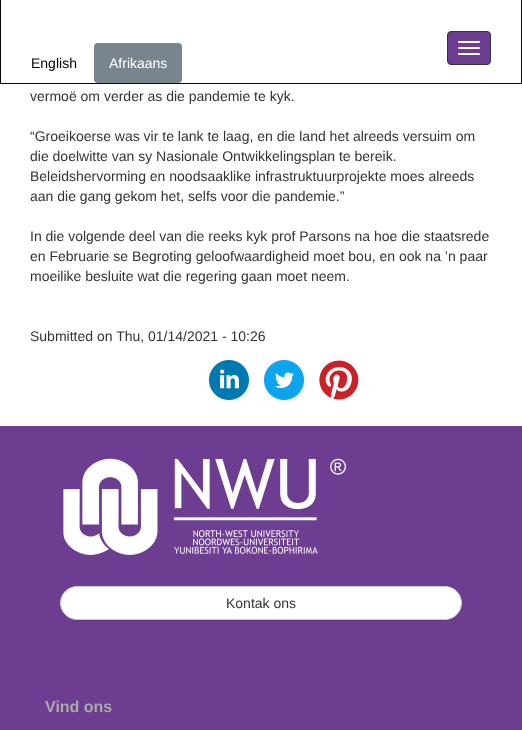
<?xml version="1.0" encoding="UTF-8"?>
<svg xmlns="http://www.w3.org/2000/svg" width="522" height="730">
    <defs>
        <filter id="blur1" x="-50%" y="-200%" width="200%" height="500%"><feGaussianBlur stdDeviation="0.5"/></filter>
    </defs>
    <rect width="100%" height="100%" fill="#FFFFFF"/>
    <rect x="0.5" y="-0.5" width="521" height="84" fill="none" stroke="#080808"/>
    <text x="31" y="68" font-family="Liberation Sans" font-size="14" fill="#000000">English</text>
    <rect x="94" y="43" width="88" height="40" rx="4" fill="#78848E"/>
    <text x="109" y="68" font-family="Liberation Sans" font-size="14" fill="#FFFFFF">Afrikaans</text>
    <rect x="447.5" y="31.5" width="43" height="33" rx="3.5" fill="#6C3D91" stroke="#333333"/>
    <rect x="458" y="41" width="22" height="2" rx="1" fill="#FFFFFF"/>
    <rect x="458" y="47" width="22" height="2" rx="1" fill="#FFFFFF"/>
    <rect x="458" y="53" width="22" height="2" rx="1" fill="#FFFFFF"/>
    <text x="30" y="101" font-family="Liberation Sans" font-size="14" fill="#333333">vermoë om verder as die pandemie te kyk.</text>
    <text font-family="Liberation Sans" font-size="14" fill="#333333">
        <tspan x="30" y="141">“Groeikoerse was vir te lank te laag, en die land het alreeds versuim om</tspan>
        <tspan x="30" y="161">die doelwitte van sy Nasionale Ontwikkelingsplan te bereik.</tspan>
        <tspan x="30" y="181">Beleidshervorming en noodsaaklike infrastruktuurprojekte moes alreeds</tspan>
        <tspan x="30" y="201">aan die gang gekom het, selfs voor die pandemie.”</tspan>
    </text>
    <text font-family="Liberation Sans" font-size="14" fill="#333333">
        <tspan x="30" y="241">In die volgende deel van die reeks kyk prof Parsons na hoe die staatsrede</tspan>
        <tspan x="30" y="261">en Februarie se Begroting geloofwaardigheid moet bou, en ook na ’n paar</tspan>
        <tspan x="30" y="281">moeilike besluite wat die regering gaan moet neem.</tspan>
    </text>
    <text x="30" y="341" font-family="Liberation Sans" font-size="14" fill="#333333">Submitted on Thu, 01/14/2021 - 10:26</text>
    <image x="209" y="360" width="40" height="40" href="img_01.png"/>
    <image x="264" y="360" width="40" height="40" href="img_02.png"/>
    <image x="319" y="360" width="40" height="40" href="img_03.png"/>
    <rect x="0" y="426" width="522" height="304" fill="#6C3D91"/>
    <image x="63" y="458" width="283" height="97" href="img_04.png"/>
    <rect x="60" y="587" width="402" height="34" rx="17" fill="#000000" fill-opacity="0.07" filter="url(#blur1)"/>
    <rect x="60.5" y="586.5" width="401" height="33" rx="16.5" fill="#FFFFFF" stroke="#CCCCCC"/>
    <text x="226" y="608" font-family="Liberation Sans" font-size="14" fill="#333333">Kontak ons</text>
    <text x="45" y="712" font-family="Liberation Sans" font-size="16" font-weight="700" fill="#AAAAAA">Vind ons</text>
</svg>
